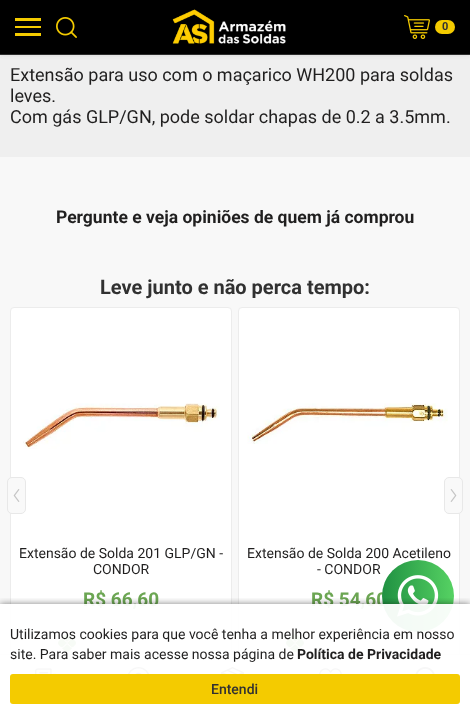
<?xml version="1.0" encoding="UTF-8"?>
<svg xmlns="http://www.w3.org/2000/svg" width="470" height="724">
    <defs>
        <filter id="blur1" x="-50%" y="-200%" width="200%" height="500%"><feGaussianBlur stdDeviation="2"/></filter>
        <linearGradient id="g1" gradientUnits="userSpaceOnUse" x1="382" y1="596" x2="454" y2="596"><stop offset="0" stop-color="#209142"/><stop offset="1" stop-color="#56D263"/></linearGradient>
        <clipPath id="clip1"><rect x="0" y="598" width="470" height="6"/></clipPath>
        <filter id="blur2" x="-50%" y="-200%" width="200%" height="500%"><feGaussianBlur stdDeviation="3.5"/></filter>
    </defs>
    <rect width="100%" height="100%" fill="#F8F8F8"/>
    <rect x="0" y="55" width="470" height="102" fill="#EFEFEF"/>
    <rect x="0" y="1" width="470" height="55" fill="#525252" fill-opacity="0.13" filter="url(#blur1)"/>
    <rect x="0" y="0" width="470" height="54" fill="#000000"/>
    <rect x="0" y="54" width="470" height="1" fill="#2D2D2D"/>
    <rect x="15" y="33" width="26" height="3" fill="#F4CB00"/>
    <rect x="15" y="26" width="26" height="2" fill="#F4CB00"/>
    <rect x="15" y="18" width="26" height="3" fill="#F4CB00"/>
    <image x="56" y="17" width="21" height="21" href="img_01.png"/>
    <image x="172" y="9" width="114" height="35" href="img_02.png"/>
    <image x="404" y="15" width="26" height="24" href="img_03.png"/>
    <rect x="435" y="20" width="20" height="14" rx="7" fill="#F4CB00"/>
    <text x="442" y="30" font-family="Roboto" font-size="11" font-weight="700" fill="#313131">0</text>
    <text font-family="Roboto" font-size="18" fill="#201F1F">
        <tspan x="10" y="81">Extensão para uso com o maçarico WH200 para soldas</tspan>
        <tspan x="10" y="102">leves.</tspan>
        <tspan x="10" y="123">Com gás GLP/GN, pode soldar chapas de 0.2 a 3.5mm.</tspan>
    </text>
    <text x="56" y="223" font-family="Roboto" font-size="17.5" font-weight="700" fill="#201F1F">Pergunte e veja opiniões de quem já comprou</text>
    <text x="100" y="294" font-family="Roboto" font-size="20" font-weight="700" fill="#313131">Leve junto e não perca tempo:</text>
    <rect x="10.5" y="307.5" width="221" height="405" rx="3.5" fill="#FFFFFF" stroke="#ECECEC"/>
    <rect x="7.5" y="477.5" width="18" height="36" rx="4.5" fill="#F9F9F9" stroke="#E8E8E8"/>
    <image x="13" y="489" width="7" height="13" href="img_04.png"/>
    <rect x="238.5" y="307.5" width="221" height="405" rx="3.5" fill="#FFFFFF" stroke="#ECECEC"/>
    <rect x="444.5" y="477.5" width="18" height="36" rx="4.5" fill="#F9F9F9" stroke="#E8E8E8"/>
    <image x="450" y="489" width="7" height="13" href="img_05.png"/>
    <image x="23" y="403" width="197" height="46" href="img_06.png"/>
    <text x="19" y="558" font-family="Roboto" font-size="14" fill="#201F1F">Extensão de Solda 201 GLP/GN -</text>
    <text x="93" y="574" font-family="Roboto" font-size="14" fill="#201F1F">CONDOR</text>
    <text x="83" y="606" font-family="Roboto" font-size="19" font-weight="700" fill="#6CA653">R$ 66,60</text>
    <rect x="18" y="622" width="206" height="41" rx="4" fill="#F6F6F6"/>
    <image x="58" y="634" width="18" height="18" href="img_07.png"/>
    <image x="247" y="403" width="201" height="41" href="img_08.png"/>
    <text x="247" y="558" font-family="Roboto" font-size="14" fill="#201F1F">Extensão de Solda 200 Acetileno</text>
    <text x="317" y="574" font-family="Roboto" font-size="14" fill="#201F1F">- CONDOR</text>
    <text x="311" y="606" font-family="Roboto" font-size="19" font-weight="700" fill="#6CA653">R$ 54,60</text>
    <rect x="246" y="622" width="206" height="41" rx="4" fill="#F6F6F6"/>
    <image x="286" y="634" width="18" height="18" href="img_07.png"/>
    <circle cx="418" cy="596" r="36" fill="url(#g1)"/>
    <image x="397" y="575" width="42" height="42" href="img_09.png"/>
    <rect x="0" y="654" width="470" height="70" fill="#525252" fill-opacity="0.08" filter="url(#blur1)"/>
    <rect x="0" y="655" width="470" height="69" fill="#FFFFFF"/>
    <rect x="0" y="654" width="470" height="1" fill="#E2E2E2"/>
    <image x="35" y="668" width="22" height="6" href="img_10.png"/>
    <image x="128" y="667" width="21" height="7" href="img_11.png"/>
    <image x="221" y="667" width="23" height="7" href="img_12.png"/>
    <image x="319" y="668" width="23" height="6" href="img_13.png"/>
    <image x="415" y="667" width="20" height="7" href="img_14.png"/>
    <g clip-path="url(#clip1)">
        <rect x="0" y="604" width="470" height="120" fill="#000000" fill-opacity="0.5" filter="url(#blur2)"/>
    </g>
    <rect x="0" y="604" width="470" height="70" fill="#FFFFFF" fill-opacity="0.95"/>
    <text font-family="Roboto" font-size="14" fill="#201F1F">
        <tspan x="10" y="639">Utilizamos cookies para que você tenha a melhor experiência em nosso</tspan>
        <tspan x="10" y="659">site. Para saber mais acesse nossa página de</tspan>
    </text>
    <text x="297" y="659" font-family="Roboto" font-size="14" font-weight="700" fill="#201F1F">Política de Privacidade</text>
    <rect x="10" y="674" width="450" height="30" rx="3" fill="#F4CB00"/>
    <text x="211" y="694" font-family="Roboto" font-size="14" font-weight="500" fill="#313131">Entendi</text>
</svg>
